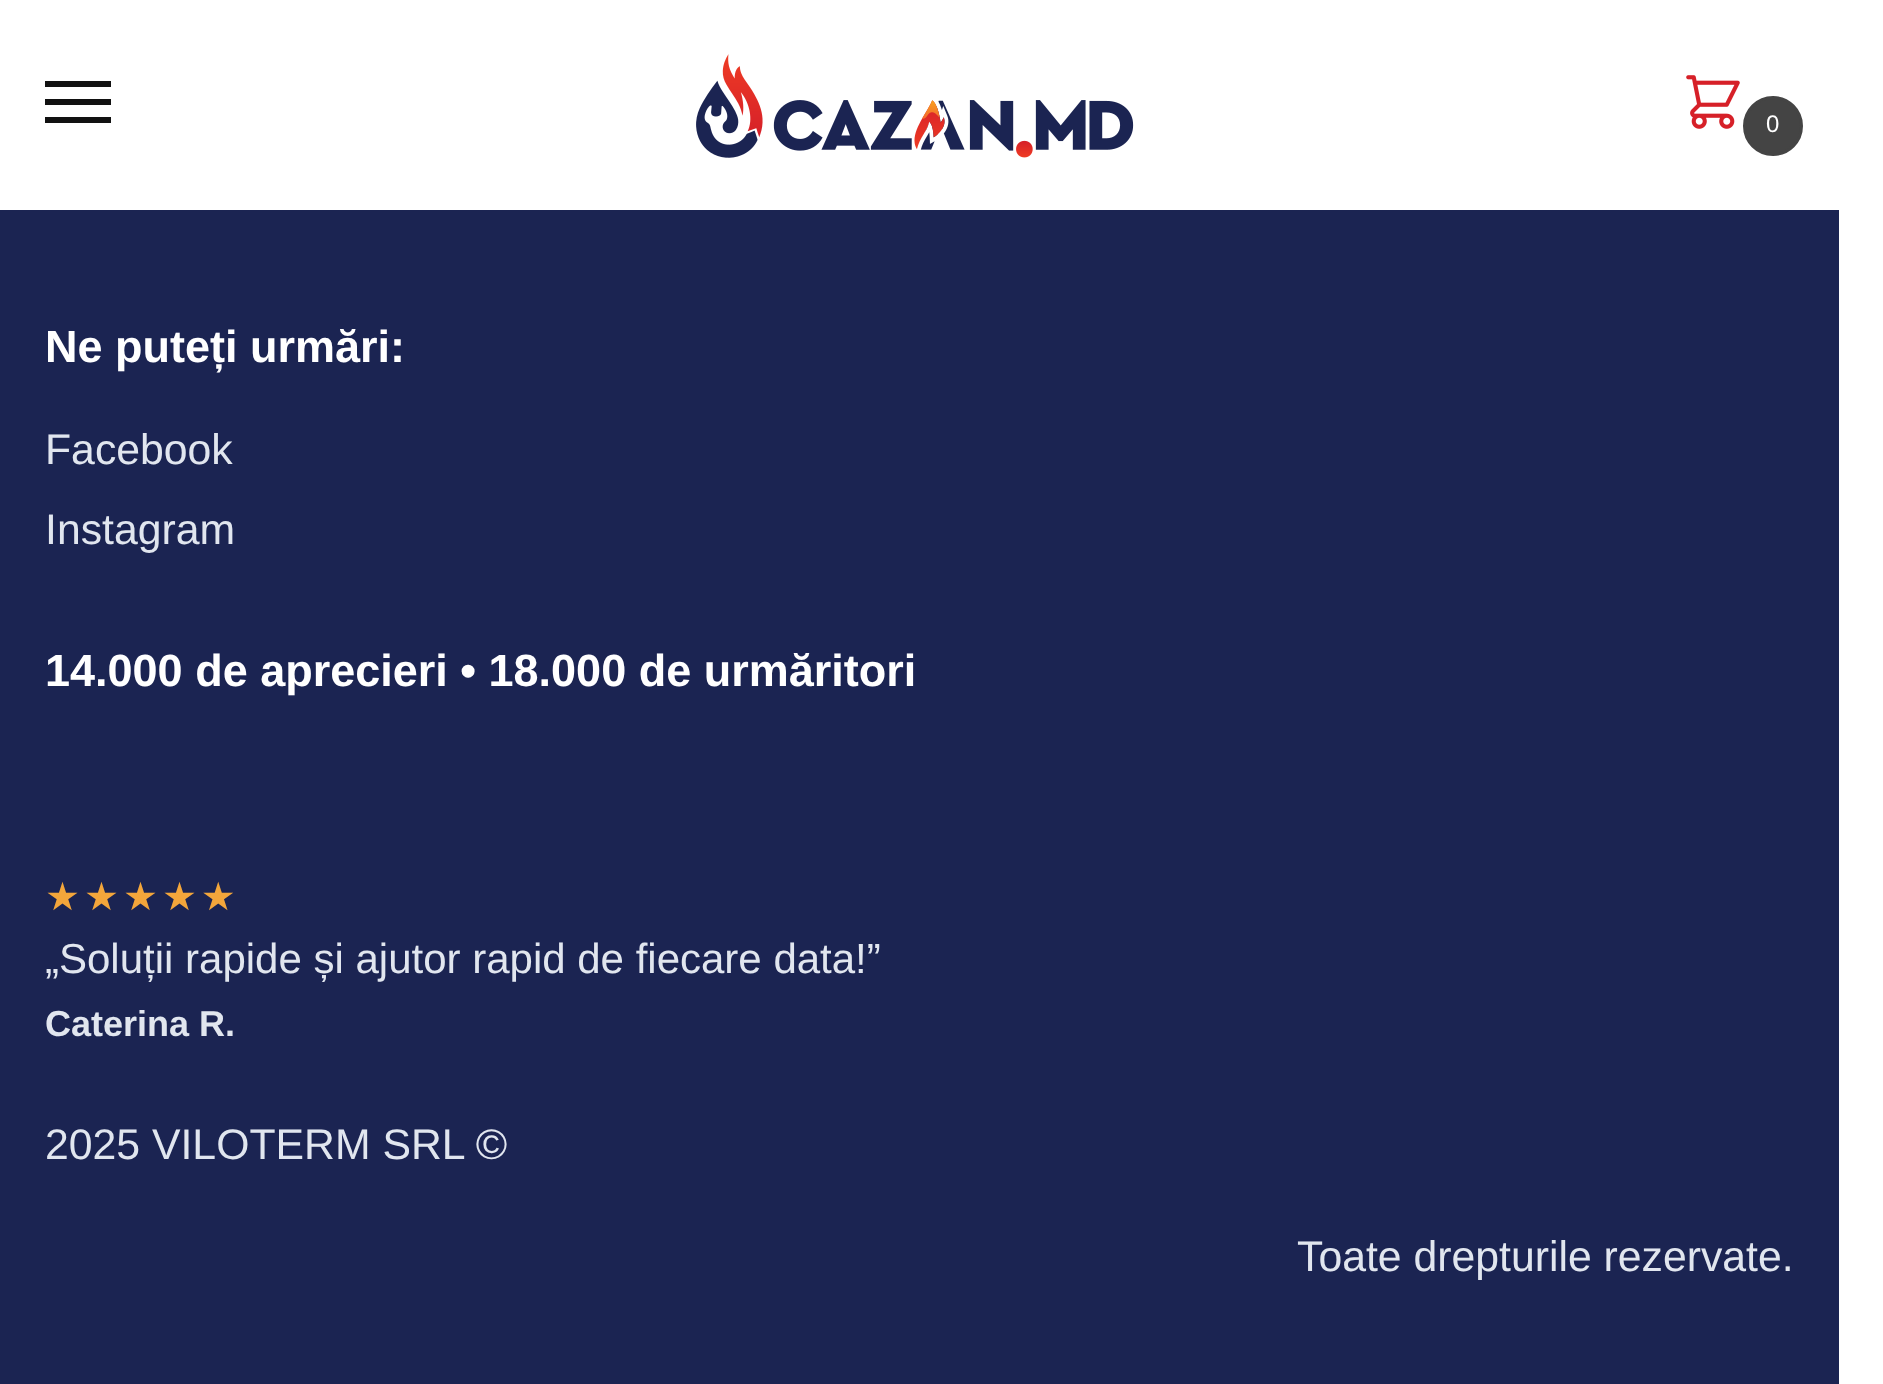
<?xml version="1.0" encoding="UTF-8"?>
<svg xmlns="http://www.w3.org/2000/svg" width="1883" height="1384">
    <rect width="100%" height="100%" fill="#1B2452"/>
    <rect x="0" y="0" width="1839" height="210" fill="#FFFFFF"/>
    <rect x="45" y="81" width="66" height="6" fill="#111111"/>
    <rect x="45" y="99" width="66" height="6" fill="#111111"/>
    <rect x="45" y="117" width="66" height="6" fill="#111111"/>
    <image x="696" y="54" width="438" height="104" href="img_01.png"/>
    <image x="1686" y="75" width="54" height="54" href="img_02.png"/>
    <circle cx="1773" cy="126" r="28.5" fill="#444444" stroke="#444444" stroke-width="3"/>
    <text x="1766" y="132" font-family="Liberation Sans" font-size="24" fill="#FFFFFF">0</text>
    <rect x="1839" y="0" width="44" height="1384" fill="#FFFFFF"/>
    <text x="45" y="362" font-family="Liberation Sans" font-size="45" font-weight="700" fill="#FFFFFF">Ne puteți urmări:</text>
    <text font-family="Liberation Sans" font-size="42.75" fill="#E1E6EF">
        <tspan x="45" y="464">Facebook</tspan>
        <tspan x="45" y="544">Instagram</tspan>
    </text>
    <text x="45" y="686" font-family="Liberation Sans" font-size="45" font-weight="700" fill="#FFFFFF">14.000 de aprecieri • 18.000 de urmăritori</text>
    <text x="45" y="910" font-family="DejaVu Sans" font-size="39" letter-spacing="4" fill="#F3A63B">★★★★★</text>
    <text x="45" y="973" font-family="Liberation Sans" font-size="42" fill="#E1E6EF">„Soluții rapide și ajutor rapid de fiecare data!”</text>
    <text x="45" y="1036" font-family="Liberation Sans" font-size="36" font-weight="700" fill="#E1E6EF">Caterina R.</text>
    <text x="45" y="1159" font-family="Liberation Sans" font-size="42.75" fill="#E1E6EF">2025 VILOTERM SRL ©</text>
    <text x="1297" y="1271" font-family="Liberation Sans" font-size="42.75" fill="#E1E6EF">Toate drepturile rezervate.</text>
</svg>
